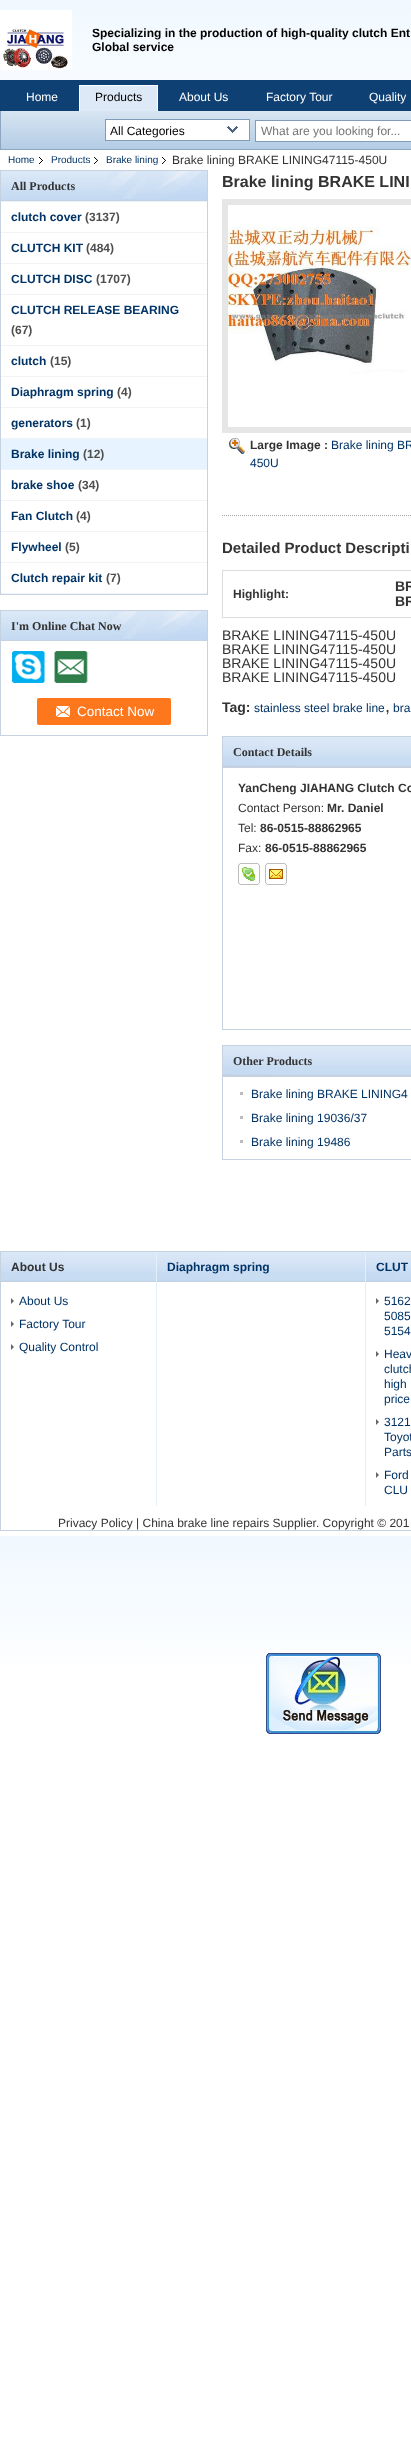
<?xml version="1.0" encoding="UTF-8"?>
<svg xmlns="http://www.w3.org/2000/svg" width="411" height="2447">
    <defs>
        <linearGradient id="g1" gradientUnits="userSpaceOnUse" x1="205" y1="0" x2="206" y2="1536"><stop offset="0" stop-color="#F0F8FF"/><stop offset="0.1" stop-color="#FFFFFF"/><stop offset="1" stop-color="#FFFFFF"/></linearGradient>
        <linearGradient id="g2" gradientUnits="userSpaceOnUse" x1="205" y1="1536" x2="206" y2="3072"><stop offset="0" stop-color="#F0F8FF"/><stop offset="0.1" stop-color="#FFFFFF"/><stop offset="1" stop-color="#FFFFFF"/></linearGradient>
        <linearGradient id="g3" gradientUnits="userSpaceOnUse" x1="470" y1="111" x2="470" y2="149"><stop offset="0" stop-color="#D8E5F2"/><stop offset="1" stop-color="#B3CCE5"/></linearGradient>
        <clipPath id="clip1"><rect x="0" y="80" width="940" height="31"/></clipPath>
    </defs>
    <rect width="100%" height="100%" fill="#FFFFFF"/>
    <rect x="0" y="0" width="411" height="128" fill="url(#g1)"/>
    <rect x="0" y="1536" width="411" height="128" fill="url(#g2)"/>
    <image x="0" y="10" width="72" height="60" href="img_01.png"/>
    <text font-family="Liberation Sans" font-size="12" font-weight="700" fill="#000000">
        <tspan x="92" y="37">Specializing in the production of high-quality clutch Ent</tspan>
        <tspan x="92" y="51">Global service</tspan>
    </text>
    <rect x="0" y="149" width="411" height="1" fill="#8EA6C1"/>
    <rect x="0" y="110" width="1" height="40" fill="#8EA6C1"/>
    <rect x="0" y="80" width="411" height="31" fill="#0E4074"/>
    <text x="26" y="101" font-family="Liberation Sans" font-size="12" fill="#FFFFFF">Home</text>
    <rect x="80" y="86" width="77" height="25" fill="#DDE9F6"/>
    <rect x="1" y="111" width="410" height="38" fill="url(#g3)"/>
    <g clip-path="url(#clip1)">
        <rect x="79.5" y="85.5" width="78" height="39" fill="none" stroke="#FFFFFF"/>
    </g>
    <text x="95" y="101" font-family="Liberation Sans" font-size="12" fill="#000000">Products</text>
    <text x="179" y="101" font-family="Liberation Sans" font-size="12" fill="#FFFFFF">About Us</text>
    <text x="266" y="101" font-family="Liberation Sans" font-size="12" fill="#FFFFFF">Factory Tour</text>
    <text x="369" y="101" font-family="Liberation Sans" font-size="12" fill="#FFFFFF">Quality</text>
    <rect x="105.5" y="119.5" width="144" height="21" fill="none" stroke="#7F9DB9"/>
    <rect x="106" y="120" width="143" height="20" fill="#FFFFFF"/>
    <image x="227" y="126" width="11" height="7" href="img_02.png"/>
    <text x="110" y="135" font-family="Liberation Sans" font-size="12" fill="#000000">All Categories</text>
    <rect x="255.5" y="120.5" width="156" height="21" fill="#FFFFFF" stroke="#7F9DB9"/>
    <text x="261" y="135" font-family="Liberation Sans" font-size="12" fill="#757575">What are you looking for...</text>
    <image x="39" y="157" width="4" height="7" href="img_03.png"/>
    <text x="8" y="163" font-family="Liberation Sans" font-size="10" fill="#003366">Home</text>
    <image x="94" y="157" width="4" height="7" href="img_04.png"/>
    <text x="51" y="163" font-family="Liberation Sans" font-size="10" fill="#003366">Products</text>
    <image x="162" y="157" width="4" height="7" href="img_04.png"/>
    <text x="106" y="163" font-family="Liberation Sans" font-size="10" fill="#003366">Brake lining</text>
    <text x="172" y="164" font-family="Liberation Sans" font-size="12" fill="#333333">Brake lining BRAKE LINING47115-450U</text>
    <rect x="0.5" y="170.5" width="207" height="424" fill="none" stroke="#C6D2E0"/>
    <image x="1" y="171" width="206" height="30" href="img_05.png"/>
    <rect x="1" y="201" width="206" height="1" fill="#E7F3FF"/>
    <text x="11" y="190" font-family="Liberation Serif" font-size="12" font-weight="700" fill="#333333">All Products</text>
    <rect x="1" y="232" width="206" height="1" fill="#F0F4F6"/>
    <text x="11" y="221" font-family="Liberation Sans" font-size="12" font-weight="700" fill="#003366">clutch cover</text>
    <text x="85" y="221" font-family="Liberation Sans" font-size="12" font-weight="700" fill="#4E4E4E">(3137)</text>
    <rect x="1" y="263" width="206" height="1" fill="#F0F4F6"/>
    <text x="11" y="252" font-family="Liberation Sans" font-size="12" font-weight="700" fill="#003366">CLUTCH KIT</text>
    <text x="86" y="252" font-family="Liberation Sans" font-size="12" font-weight="700" fill="#4E4E4E">(484)</text>
    <rect x="1" y="294" width="206" height="1" fill="#F0F4F6"/>
    <text x="11" y="283" font-family="Liberation Sans" font-size="12" font-weight="700" fill="#003366">CLUTCH DISC</text>
    <text x="96" y="283" font-family="Liberation Sans" font-size="12" font-weight="700" fill="#4E4E4E">(1707)</text>
    <rect x="1" y="345" width="206" height="1" fill="#F0F4F6"/>
    <text x="11" y="314" font-family="Liberation Sans" font-size="12" font-weight="700" fill="#003366">CLUTCH RELEASE BEARING</text>
    <text x="11" y="334" font-family="Liberation Sans" font-size="12" font-weight="700" fill="#4E4E4E">(67)</text>
    <rect x="1" y="376" width="206" height="1" fill="#F0F4F6"/>
    <text x="11" y="365" font-family="Liberation Sans" font-size="12" font-weight="700" fill="#003366">clutch</text>
    <text x="50" y="365" font-family="Liberation Sans" font-size="12" font-weight="700" fill="#4E4E4E">(15)</text>
    <rect x="1" y="407" width="206" height="1" fill="#F0F4F6"/>
    <text x="11" y="396" font-family="Liberation Sans" font-size="12" font-weight="700" fill="#003366">Diaphragm spring</text>
    <text x="117" y="396" font-family="Liberation Sans" font-size="12" font-weight="700" fill="#4E4E4E">(4)</text>
    <rect x="1" y="438" width="206" height="1" fill="#F0F4F6"/>
    <text x="11" y="427" font-family="Liberation Sans" font-size="12" font-weight="700" fill="#003366">generators</text>
    <text x="76" y="427" font-family="Liberation Sans" font-size="12" font-weight="700" fill="#4E4E4E">(1)</text>
    <rect x="1" y="439" width="206" height="30" fill="#E7F3FF"/>
    <rect x="1" y="469" width="206" height="1" fill="#F0F4F6"/>
    <text x="11" y="458" font-family="Liberation Sans" font-size="12" font-weight="700" fill="#003366">Brake lining</text>
    <text x="83" y="458" font-family="Liberation Sans" font-size="12" font-weight="700" fill="#4E4E4E">(12)</text>
    <rect x="1" y="500" width="206" height="1" fill="#F0F4F6"/>
    <text x="11" y="489" font-family="Liberation Sans" font-size="12" font-weight="700" fill="#003366">brake shoe</text>
    <text x="78" y="489" font-family="Liberation Sans" font-size="12" font-weight="700" fill="#4E4E4E">(34)</text>
    <rect x="1" y="531" width="206" height="1" fill="#F0F4F6"/>
    <text x="11" y="520" font-family="Liberation Sans" font-size="12" font-weight="700" fill="#003366">Fan Clutch</text>
    <text x="76" y="520" font-family="Liberation Sans" font-size="12" font-weight="700" fill="#4E4E4E">(4)</text>
    <rect x="1" y="562" width="206" height="1" fill="#F0F4F6"/>
    <text x="11" y="551" font-family="Liberation Sans" font-size="12" font-weight="700" fill="#003366">Flywheel</text>
    <text x="65" y="551" font-family="Liberation Sans" font-size="12" font-weight="700" fill="#4E4E4E">(5)</text>
    <rect x="1" y="593" width="206" height="1" fill="#F0F4F6"/>
    <text x="11" y="582" font-family="Liberation Sans" font-size="12" font-weight="700" fill="#003366">Clutch repair kit</text>
    <text x="106" y="582" font-family="Liberation Sans" font-size="12" font-weight="700" fill="#4E4E4E">(7)</text>
    <rect x="0.5" y="610.5" width="207" height="125" fill="none" stroke="#C6D2E0"/>
    <image x="1" y="611" width="206" height="30" href="img_05.png"/>
    <text x="11" y="630" font-family="Liberation Serif" font-size="12" font-weight="700" fill="#333333">I'm Online Chat Now</text>
    <image x="12" y="651" width="34" height="32" href="img_06.png"/>
    <image x="54" y="651" width="34" height="32" href="img_07.png"/>
    <rect x="37" y="698" width="134" height="27" rx="2" fill="#FF771C"/>
    <image x="56" y="706" width="14" height="11" href="img_08.png"/>
    <text x="77" y="716" font-family="Liberation Sans" font-size="13.5" fill="#FFFFFF">Contact Now</text>
    <text x="222" y="187" font-family="Liberation Sans" font-size="16" font-weight="700" fill="#333333">Brake lining BRAKE LINI</text>
    <path d="M 222 515.5 H 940" fill="none" stroke="#A2A2A2" stroke-dasharray="1 1"/>
    <rect x="225" y="202" width="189" height="228" fill="none" stroke="#E6E6E6" stroke-width="6"/>
    <image x="228" y="227" width="183" height="147" href="img_09.png"/>
    <image x="229" y="438" width="16" height="16" href="img_10.png"/>
    <text x="250" y="449" font-family="Liberation Sans" font-size="12" font-weight="700" fill="#333333">Large Image :</text>
    <text x="331" y="449" font-family="Liberation Sans" font-size="12" fill="#003366">Brake lining BR</text>
    <text x="250" y="467" font-family="Liberation Sans" font-size="12" fill="#003366">450U</text>
    <text x="222" y="553" font-family="Liberation Sans" font-size="15" font-weight="700" fill="#333333">Detailed Product Descripti</text>
    <rect x="222.5" y="570.5" width="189" height="47" fill="none" stroke="#DCDCDC"/>
    <text x="233" y="598" font-family="Liberation Sans" font-size="12" font-weight="700" fill="#333333">Highlight:</text>
    <text font-family="Liberation Sans" font-size="14" font-weight="700" fill="#333333">
        <tspan x="395" y="591">BR</tspan>
        <tspan x="395" y="606">BR</tspan>
    </text>
    <text font-family="Liberation Sans" font-size="14" fill="#333333">
        <tspan x="222" y="640">BRAKE LINING47115-450U</tspan>
        <tspan x="222" y="654">BRAKE LINING47115-450U</tspan>
        <tspan x="222" y="668">BRAKE LINING47115-450U</tspan>
        <tspan x="222" y="682">BRAKE LINING47115-450U</tspan>
    </text>
    <text x="222" y="712" font-family="Liberation Sans" font-size="14" font-weight="700" fill="#333333">Tag:</text>
    <text x="254" y="712" font-family="Liberation Sans" font-size="12" fill="#003366">stainless steel brake line</text>
    <text x="385" y="712" font-family="Liberation Sans" font-size="18" fill="#333333">,</text>
    <text x="393" y="712" font-family="Liberation Sans" font-size="12" fill="#003366">bra</text>
    <image x="223" y="737" width="188" height="30" href="img_11.png"/>
    <rect x="222.5" y="736.5" width="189" height="31" fill="none" stroke="#C6D2E0"/>
    <text x="233" y="756" font-family="Liberation Serif" font-size="12" font-weight="700" fill="#333333">Contact Details</text>
    <rect x="222" y="1029" width="189" height="1" fill="#C6D2E0"/>
    <rect x="222" y="768" width="1" height="262" fill="#C6D2E0"/>
    <text x="238" y="792" font-family="Liberation Sans" font-size="12" font-weight="700" fill="#333333">YanCheng JIAHANG Clutch Co</text>
    <text x="238" y="812" font-family="Liberation Sans" font-size="12" fill="#333333">Contact Person:</text>
    <text x="327" y="812" font-family="Liberation Sans" font-size="12" font-weight="700" fill="#333333">Mr. Daniel</text>
    <text x="238" y="832" font-family="Liberation Sans" font-size="12" fill="#333333">Tel:</text>
    <text x="260" y="832" font-family="Liberation Sans" font-size="12" font-weight="700" fill="#333333">86-0515-88862965</text>
    <text x="238" y="852" font-family="Liberation Sans" font-size="12" fill="#333333">Fax:</text>
    <text x="265" y="852" font-family="Liberation Sans" font-size="12" font-weight="700" fill="#333333">86-0515-88862965</text>
    <image x="238" y="863" width="22" height="22" href="img_12.png"/>
    <image x="265" y="863" width="22" height="22" href="img_13.png"/>
    <image x="223" y="1046" width="188" height="30" href="img_11.png"/>
    <rect x="222.5" y="1045.5" width="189" height="31" fill="none" stroke="#C6D2E0"/>
    <text x="233" y="1065" font-family="Liberation Serif" font-size="12" font-weight="700" fill="#333333">Other Products</text>
    <rect x="222" y="1159" width="189" height="1" fill="#C6D2E0"/>
    <rect x="222" y="1077" width="1" height="83" fill="#C6D2E0"/>
    <rect x="240" y="1092" width="3" height="3" fill="#BBBBBB"/>
    <text x="251" y="1098" font-family="Liberation Sans" font-size="12" fill="#003366">Brake lining BRAKE LINING4</text>
    <rect x="240" y="1116" width="3" height="3" fill="#BBBBBB"/>
    <text x="251" y="1122" font-family="Liberation Sans" font-size="12" fill="#003366">Brake lining 19036/37</text>
    <rect x="240" y="1140" width="3" height="3" fill="#BBBBBB"/>
    <text x="251" y="1146" font-family="Liberation Sans" font-size="12" fill="#003366">Brake lining 19486</text>
    <rect x="0.5" y="1251.5" width="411" height="279" fill="none" stroke="#C6D2E0"/>
    <rect x="156" y="1252" width="1" height="254" fill="#E4EFFC"/>
    <image x="1" y="1252" width="155" height="30" href="img_14.png"/>
    <text x="11" y="1271" font-family="Liberation Sans" font-size="12" font-weight="700" fill="#333333">About Us</text>
    <path d="M 11 1304 V 1298 L 14 1301 Z" fill="#666666"/>
    <text x="19" y="1305" font-family="Liberation Sans" font-size="12" fill="#003366">About Us</text>
    <path d="M 11 1327 V 1321 L 14 1324 Z" fill="#666666"/>
    <text x="19" y="1328" font-family="Liberation Sans" font-size="12" fill="#003366">Factory Tour</text>
    <path d="M 11 1350 V 1344 L 14 1347 Z" fill="#666666"/>
    <text x="19" y="1351" font-family="Liberation Sans" font-size="12" fill="#003366">Quality Control</text>
    <rect x="365" y="1252" width="1" height="254" fill="#E4EFFC"/>
    <image x="157" y="1252" width="208" height="30" href="img_15.png"/>
    <text x="167" y="1271" font-family="Liberation Sans" font-size="12" font-weight="700" fill="#003366">Diaphragm spring</text>
    <image x="366" y="1252" width="45" height="30" href="img_16.png"/>
    <text x="376" y="1271" font-family="Liberation Sans" font-size="12" font-weight="700" fill="#003366">CLUT</text>
    <path d="M 376 1304 V 1298 L 379 1301 Z" fill="#666666"/>
    <text font-family="Liberation Sans" font-size="12" fill="#003366">
        <tspan x="384" y="1305">5162</tspan>
        <tspan x="384" y="1320">5085</tspan>
        <tspan x="384" y="1335">5154</tspan>
    </text>
    <path d="M 376 1357 V 1351 L 379 1354 Z" fill="#666666"/>
    <text font-family="Liberation Sans" font-size="12" fill="#003366">
        <tspan x="384" y="1358">Heav</tspan>
        <tspan x="384" y="1373">clutch</tspan>
        <tspan x="384" y="1388">high</tspan>
        <tspan x="384" y="1403">price</tspan>
    </text>
    <path d="M 376 1425 V 1419 L 379 1422 Z" fill="#666666"/>
    <text font-family="Liberation Sans" font-size="12" fill="#003366">
        <tspan x="384" y="1426">3121</tspan>
        <tspan x="384" y="1441">Toyot</tspan>
        <tspan x="384" y="1456">Parts</tspan>
    </text>
    <path d="M 376 1478 V 1472 L 379 1475 Z" fill="#666666"/>
    <text font-family="Liberation Sans" font-size="12" fill="#003366">
        <tspan x="384" y="1479">Ford</tspan>
        <tspan x="384" y="1494">CLU</tspan>
    </text>
    <text x="58" y="1527" font-family="Liberation Sans" font-size="12" fill="#333333">Privacy Policy | China brake line repairs Supplier. Copyright © 201</text>
    <image x="266" y="1653" width="115" height="81" href="img_17.png"/>
</svg>
